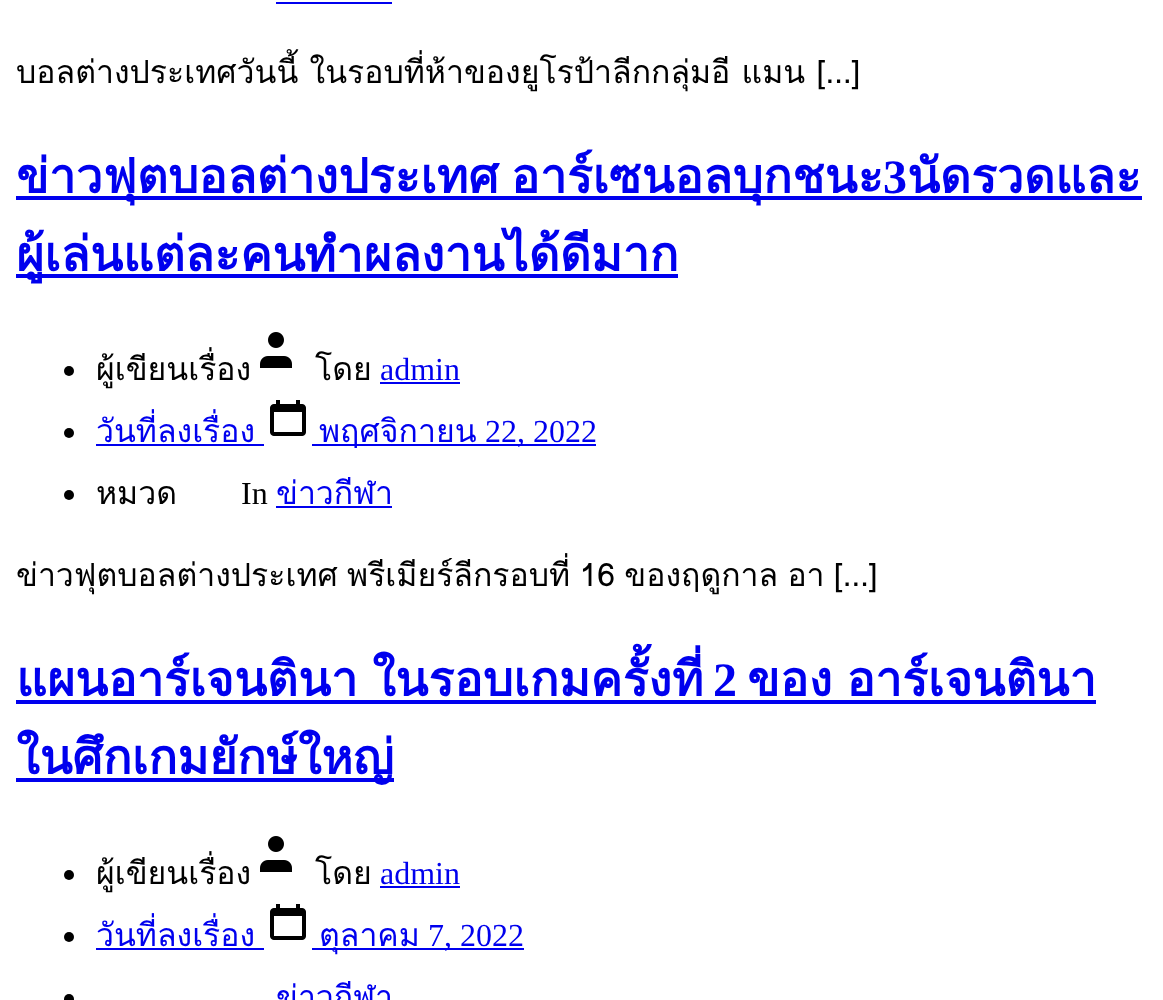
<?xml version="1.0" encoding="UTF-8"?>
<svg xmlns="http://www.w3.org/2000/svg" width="1163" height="1000">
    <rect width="100%" height="100%" fill="#FFFFFF"/>
    <rect x="276" y="2" width="116" height="2" fill="#0000EE"/>
    <text x="16" y="83" word-spacing="0.5" font-family="Loma" font-size="32" fill="#000000">บอลต่างประเทศวันนี้ ในรอบที่ห้าของยูโรป้าลีกกลุ่มอี แมน […]</text>
    <rect x="16" y="196" width="1126" height="4" fill="#0000EE"/>
    <text x="16" y="193" word-spacing="-4" font-family="Loma" font-size="48" font-weight="700" fill="#0000EE">ข่าวฟุตบอลต่างประเทศ อาร์เซนอลบุกชนะ</text>
    <text x="883" y="193" font-family="Liberation Serif" font-size="48" font-weight="700" fill="#0000EE">3</text>
    <text x="907" y="193" font-family="Loma" font-size="48" font-weight="700" fill="#0000EE">นัดรวดและ</text>
    <rect x="16" y="274" width="662" height="4" fill="#0000EE"/>
    <text x="16" y="271" font-family="Loma" font-size="48" font-weight="700" fill="#0000EE">ผู้เล่นแต่ละคนทำผลงานได้ดีมาก</text>
    <circle cx="69" cy="371" r="5" fill="#000000"/>
    <text x="96" y="380" font-family="Loma" font-size="32" fill="#000000">ผู้เขียนเรื่อง</text>
    <image x="260" y="332" width="32" height="36" href="img_01.png"/>
    <text x="315" y="380" font-family="Loma" font-size="32" fill="#000000">โดย</text>
    <text x="380" y="380" font-family="Liberation Serif" font-size="32" fill="#0000EE">admin</text>
    <rect x="380" y="382" width="80" height="2" fill="#0000EE"/>
    <circle cx="69" cy="433" r="5" fill="#000000"/>
    <text x="96" y="442" font-family="Loma" font-size="32" fill="#0000EE">วันที่ลงเรื่อง</text>
    <rect x="96" y="444" width="168" height="2" fill="#0000EE"/>
    <image x="270" y="400" width="36" height="36" href="img_02.png"/>
    <rect x="312" y="444" width="284" height="2" fill="#0000EE"/>
    <text x="319" y="442" font-family="Loma" font-size="32" fill="#0000EE">พฤศจิกายน</text>
    <text x="485" y="442" font-family="Liberation Serif" font-size="32" fill="#0000EE">22, 2022</text>
    <circle cx="69" cy="495" r="5" fill="#000000"/>
    <text x="96" y="504" font-family="Loma" font-size="32" fill="#000000">หมวด</text>
    <text x="241" y="504" font-family="Liberation Serif" font-size="32" fill="#000000">In</text>
    <text x="276" y="504" font-family="Loma" font-size="32" fill="#0000EE">ข่าวกีฬา</text>
    <rect x="276" y="506" width="116" height="2" fill="#0000EE"/>
    <text x="16" y="586" word-spacing="-1.5" font-family="Loma" font-size="32" fill="#000000">ข่าวฟุตบอลต่างประเทศ พรีเมียร์ลีกรอบที่ 16 ของฤดูกาล อา […]</text>
    <text x="16" y="696" word-spacing="-2" font-family="Loma" font-size="48" font-weight="700" fill="#0000EE">แผนอาร์เจนตินา ในรอบเกมครั้งที่</text>
    <text x="713" y="696" font-family="Liberation Serif" font-size="48" font-weight="700" fill="#0000EE">2</text>
    <rect x="16" y="700" width="1080" height="4" fill="#0000EE"/>
    <text x="747" y="696" word-spacing="-2" font-family="Loma" font-size="48" font-weight="700" fill="#0000EE">ของ อาร์เจนตินา</text>
    <rect x="16" y="778" width="378" height="4" fill="#0000EE"/>
    <text x="16" y="774" font-family="Loma" font-size="48" font-weight="700" fill="#0000EE">ในศึกเกมยักษ์ใหญ่</text>
    <circle cx="69" cy="875" r="5" fill="#000000"/>
    <text x="96" y="884" font-family="Loma" font-size="32" fill="#000000">ผู้เขียนเรื่อง</text>
    <image x="260" y="836" width="32" height="36" href="img_01.png"/>
    <text x="315" y="884" font-family="Loma" font-size="32" fill="#000000">โดย</text>
    <text x="380" y="884" font-family="Liberation Serif" font-size="32" fill="#0000EE">admin</text>
    <rect x="380" y="886" width="80" height="2" fill="#0000EE"/>
    <circle cx="69" cy="937" r="5" fill="#000000"/>
    <text x="96" y="946" font-family="Loma" font-size="32" fill="#0000EE">วันที่ลงเรื่อง</text>
    <rect x="96" y="948" width="168" height="2" fill="#0000EE"/>
    <image x="270" y="904" width="36" height="36" href="img_02.png"/>
    <rect x="312" y="948" width="212" height="2" fill="#0000EE"/>
    <text x="319" y="946" font-family="Loma" font-size="32" fill="#0000EE">ตุลาคม</text>
    <text x="428" y="946" font-family="Liberation Serif" font-size="32" fill="#0000EE">7, 2022</text>
    <circle cx="69" cy="999" r="5" fill="#000000"/>
    <text x="276" y="1008" font-family="Loma" font-size="32" fill="#0000EE">ข่าวกีฬา</text>
</svg>
